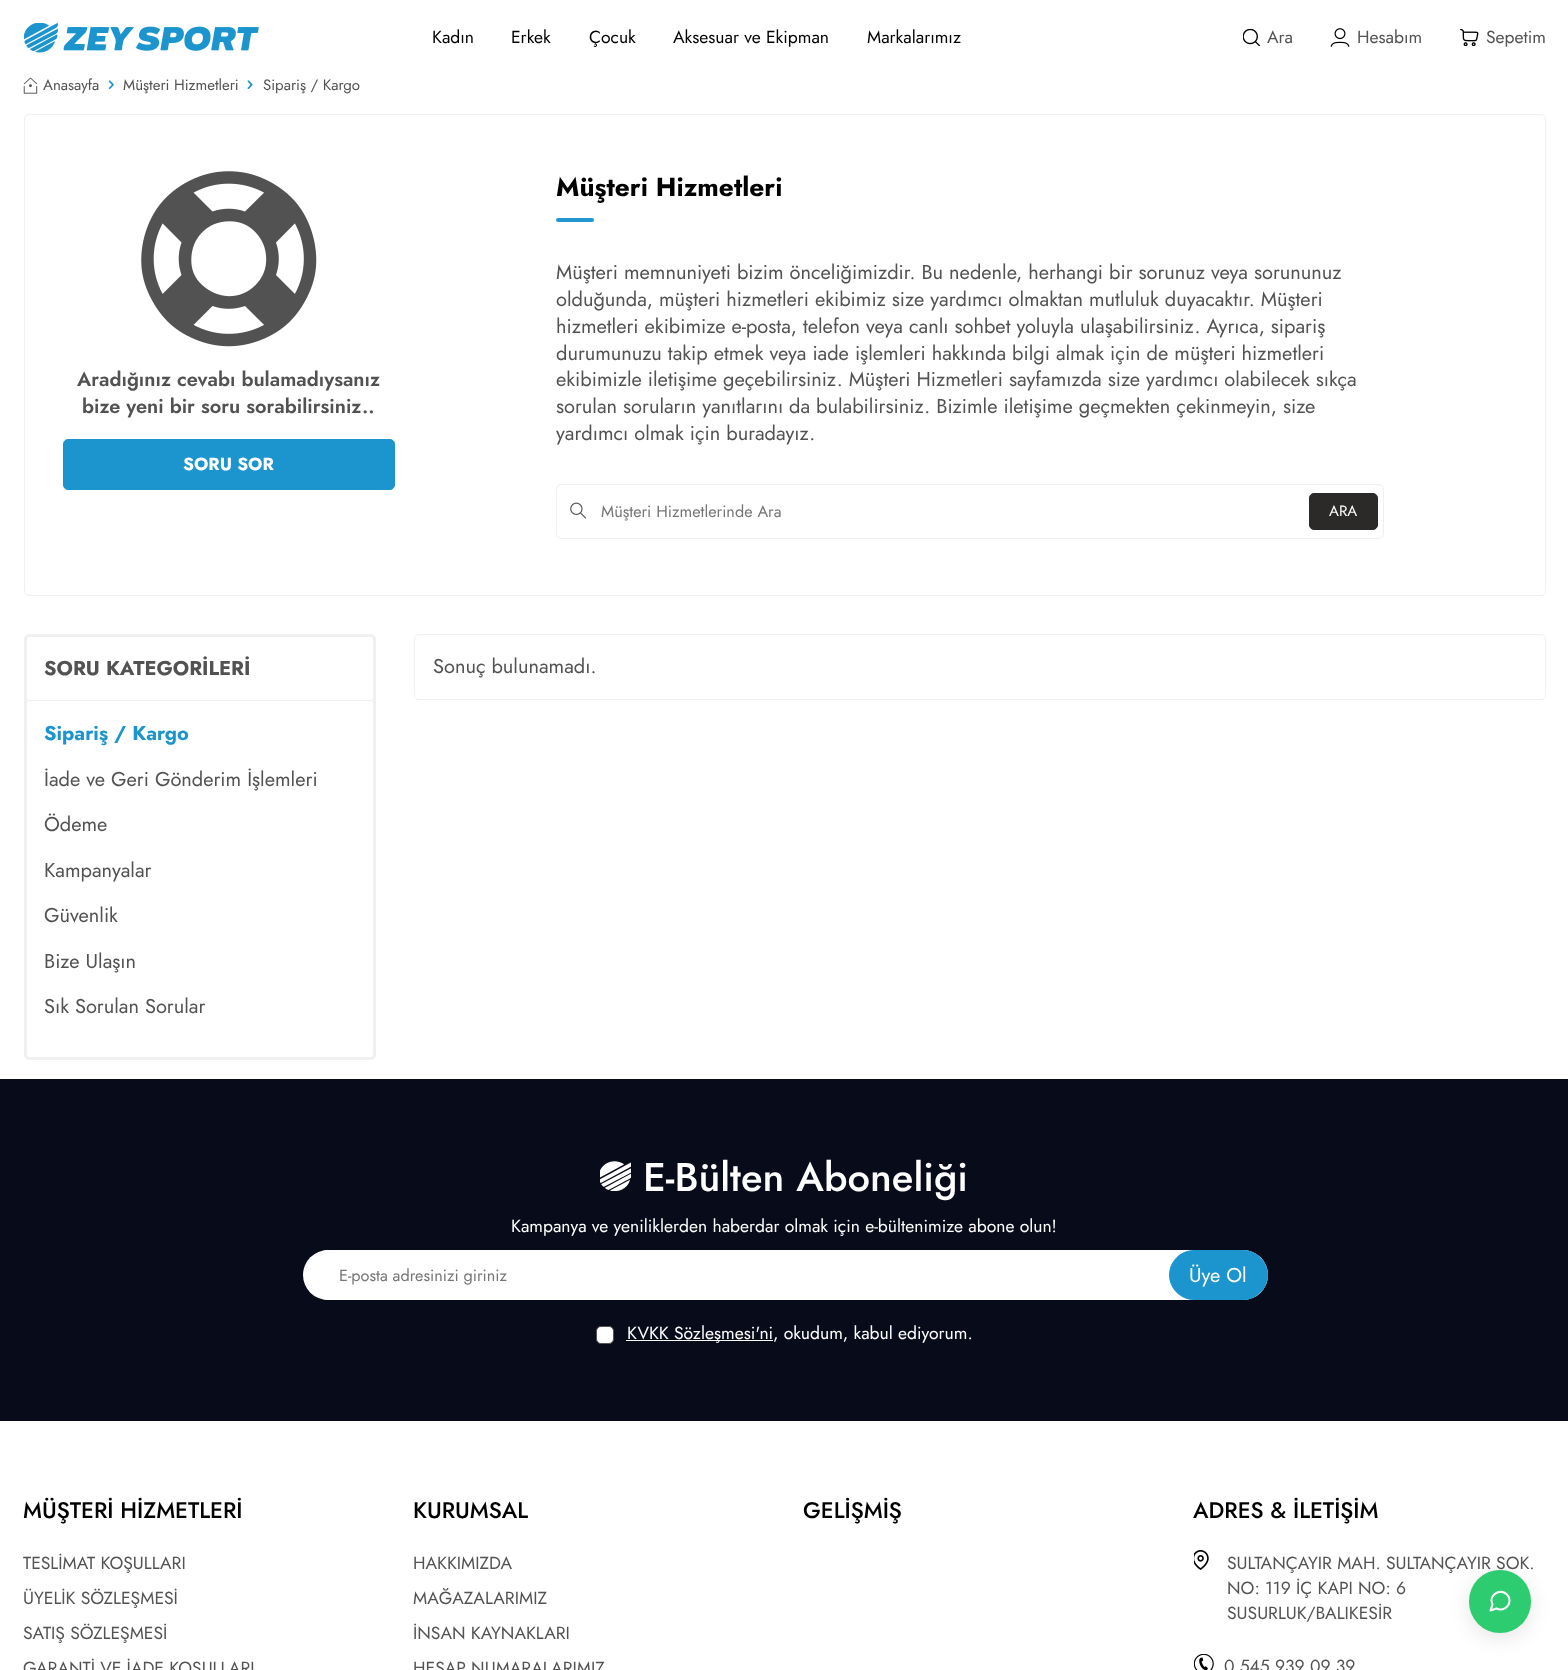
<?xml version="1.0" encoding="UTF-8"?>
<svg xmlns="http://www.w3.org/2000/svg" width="1568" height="1670">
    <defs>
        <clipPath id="clip1"><rect x="303" y="1250" width="965" height="50" rx="25"/></clipPath>
        <filter id="blur1" x="-50%" y="-200%" width="200%" height="500%"><feGaussianBlur stdDeviation="10"/></filter>
    </defs>
    <rect width="100%" height="100%" fill="#FFFFFF"/>
    <image x="24" y="23" width="235" height="30" href="img_01.png"/>
    <text x="432" y="43" font-family="Jost" font-size="17.5" fill="#000000">Kadın</text>
    <text x="511" y="43" font-family="Jost" font-size="17.5" fill="#000000">Erkek</text>
    <text x="589" y="43" font-family="Jost" font-size="17.5" fill="#000000">Çocuk</text>
    <text x="673" y="43" font-family="Jost" font-size="17.5" fill="#000000">Aksesuar ve Ekipman</text>
    <text x="867" y="43" font-family="Jost" font-size="17.5" fill="#000000">Markalarımız</text>
    <image x="1243" y="29" width="17" height="17" href="img_02.png"/>
    <text x="1267" y="43" font-family="Jost" font-size="17.5" fill="#525252">Ara</text>
    <image x="1330" y="28" width="20" height="19" href="img_03.png"/>
    <text x="1357" y="43" font-family="Jost" font-size="17.5" fill="#525252">Hesabım</text>
    <image x="1460" y="29" width="19" height="17" href="img_04.png"/>
    <text x="1486" y="43" font-family="Jost" font-size="17.5" fill="#525252">Sepetim</text>
    <image x="23" y="77" width="15" height="17" href="img_05.png"/>
    <text x="43" y="90" font-family="Jost" font-size="15" fill="#525252">Anasayfa</text>
    <image x="108" y="80" width="6" height="10" href="img_06.png"/>
    <text x="123" y="90" font-family="Jost" font-size="15" fill="#525252">Müşteri Hizmetleri</text>
    <image x="247" y="80" width="6" height="10" href="img_07.png"/>
    <text x="263" y="90" font-family="Jost" font-size="15" fill="#525252">Sipariş / Kargo</text>
    <rect x="24.5" y="114.5" width="1521" height="481" rx="4.5" fill="none" stroke="#F0F0F0"/>
    <image x="141" y="171" width="176" height="176" href="img_08.png"/>
    <text x="77" y="386" font-family="Jost" font-size="20" font-weight="600" fill="#525252">Aradığınız cevabı bulamadıysanız</text>
    <text x="82" y="413" font-family="Jost" font-size="20" font-weight="600" fill="#525252">bize yeni bir soru sorabilirsiniz..</text>
    <rect x="63.5" y="439.5" width="331" height="50" rx="4.5" fill="#1C95CE" stroke="#1C95CE"/>
    <text x="183" y="470" font-family="Jost" font-size="17.5" font-weight="700" fill="#FFFFFF">SORU SOR</text>
    <text x="556" y="196" font-family="Jost" font-size="26.25" font-weight="700" fill="#000000">Müşteri Hizmetleri</text>
    <rect x="556" y="218" width="38" height="4" rx="2" fill="#2398D0"/>
    <text font-family="Jost" font-size="20" fill="#525252">
        <tspan x="556" y="279">Müşteri memnuniyeti bizim önceliğimizdir. Bu nedenle, herhangi bir sorunuz veya sorununuz</tspan>
        <tspan x="556" y="306">olduğunda, müşteri hizmetleri ekibimiz size yardımcı olmaktan mutluluk duyacaktır. Müşteri</tspan>
        <tspan x="556" y="333">hizmetleri ekibimize e-posta, telefon veya canlı sohbet yoluyla ulaşabilirsiniz. Ayrıca, sipariş</tspan>
        <tspan x="556" y="360">durumunuzu takip etmek veya iade işlemleri hakkında bilgi almak için de müşteri hizmetleri</tspan>
        <tspan x="556" y="386">ekibimizle iletişime geçebilirsiniz. Müşteri Hizmetleri sayfamızda size yardımcı olabilecek sıkça</tspan>
        <tspan x="556" y="413">sorulan soruların yanıtlarını da bulabilirsiniz. Bizimle iletişime geçmekten çekinmeyin, size</tspan>
        <tspan x="556" y="440">yardımcı olmak için buradayız.</tspan>
    </text>
    <rect x="556.5" y="484.5" width="827" height="54" rx="4.5" fill="none" stroke="#F0F0F0"/>
    <image x="570" y="502" width="17" height="17" href="img_09.png"/>
    <text x="601" y="517" font-family="Jost" font-size="16.25" fill="#757575">Müşteri Hizmetlerinde Ara</text>
    <rect x="1309.5" y="493.5" width="68" height="36" rx="4.5" fill="#2C2A28" stroke="#2C2A28"/>
    <text x="1329" y="516" font-family="Jost" font-size="15" fill="#FFFFFF">ARA</text>
    <rect x="25.5" y="635.5" width="349" height="423" rx="3.5" fill="none" stroke="#F0F0F0" stroke-width="3"/>
    <text x="44" y="675" font-family="Jost" font-size="20" font-weight="700" fill="#525252">SORU KATEGORİLERİ</text>
    <rect x="26" y="700" width="348" height="1" fill="#F0F0F0"/>
    <text x="44" y="740" font-family="Jost" font-size="20" font-weight="700" fill="#1C95CE">Sipariş / Kargo</text>
    <text x="44" y="786" font-family="Jost" font-size="20" fill="#525252">İade ve Geri Gönderim İşlemleri</text>
    <text x="44" y="831" font-family="Jost" font-size="20" fill="#525252">Ödeme</text>
    <text x="44" y="877" font-family="Jost" font-size="20" fill="#525252">Kampanyalar</text>
    <text x="44" y="922" font-family="Jost" font-size="20" fill="#525252">Güvenlik</text>
    <text x="44" y="968" font-family="Jost" font-size="20" fill="#525252">Bize Ulaşın</text>
    <text x="44" y="1013" font-family="Jost" font-size="20" fill="#525252">Sık Sorulan Sorular</text>
    <rect x="414.5" y="634.5" width="1131" height="65" rx="4.5" fill="none" stroke="#F0F0F0"/>
    <text x="433" y="673" font-family="Jost" font-size="20" fill="#525252">Sonuç bulunamadı.</text>
    <rect x="0" y="1079" width="1568" height="342" fill="#080B1A"/>
    <image x="600" y="1161" width="31" height="30" href="img_10.png"/>
    <text x="643" y="1191" font-family="Jost" font-size="40" font-weight="500" fill="#FFFFFF">E-Bülten Aboneliği</text>
    <text x="511" y="1232" font-family="Jost" font-size="17.5" fill="#FFFFFF">Kampanya ve yeniliklerden haberdar olmak için e-bültenimize abone olun!</text>
    <rect x="303" y="1250" width="965" height="50" rx="25" fill="#FFFFFF"/>
    <g clip-path="url(#clip1)">
        <rect x="321" y="1250" width="848" height="50" rx="5" fill="#FFFFFF"/>
    </g>
    <text x="339" y="1281" font-family="Jost" font-size="16.25" fill="#757575">E-posta adresinizi giriniz</text>
    <rect x="1169.5" y="1250.5" width="98" height="49" rx="24.5" fill="#1C95CE" stroke="#1C95CE"/>
    <text x="1189" y="1282" font-family="Jost" font-size="20" fill="#FFFFFF">Üye Ol</text>
    <rect x="596.5" y="1326.5" width="17" height="17" rx="4.5" fill="#FFFFFF" stroke="#525252"/>
    <rect x="626" y="1340" width="147" height="1" fill="#FFFFFF"/>
    <text x="627" y="1339" font-family="Jost" font-size="17.5" fill="#FFFFFF">KVKK Sözleşmesi'ni, okudum, kabul ediyorum.</text>
    <text x="23" y="1518" font-family="Jost" font-size="22.5" font-weight="500" fill="#000000">MÜŞTERİ HİZMETLERİ</text>
    <text x="23" y="1569" font-family="Jost" font-size="17.5" fill="#525252">TESLİMAT KOŞULLARI</text>
    <text x="23" y="1604" font-family="Jost" font-size="17.5" fill="#525252">ÜYELİK SÖZLEŞMESİ</text>
    <text x="23" y="1639" font-family="Jost" font-size="17.5" fill="#525252">SATIŞ SÖZLEŞMESİ</text>
    <text x="23" y="1674" font-family="Jost" font-size="17.5" fill="#525252">GARANTİ VE İADE KOŞULLARI</text>
    <text x="413" y="1518" font-family="Jost" font-size="22.5" font-weight="500" fill="#000000">KURUMSAL</text>
    <text x="413" y="1569" font-family="Jost" font-size="17.5" fill="#525252">HAKKIMIZDA</text>
    <text x="413" y="1604" font-family="Jost" font-size="17.5" fill="#525252">MAĞAZALARIMIZ</text>
    <text x="413" y="1639" font-family="Jost" font-size="17.5" fill="#525252">İNSAN KAYNAKLARI</text>
    <text x="413" y="1674" font-family="Jost" font-size="17.5" fill="#525252">HESAP NUMARALARIMIZ</text>
    <text x="803" y="1518" font-family="Jost" font-size="22.5" font-weight="500" fill="#000000">GELİŞMİŞ</text>
    <text x="1193" y="1518" font-family="Jost" font-size="22.5" font-weight="500" fill="#000000">ADRES &amp; İLETİŞİM</text>
    <image x="1194" y="1550" width="15" height="20" href="img_11.png"/>
    <text font-family="Jost" font-size="17.5" fill="#525252">
        <tspan x="1227" y="1569">SULTANÇAYIR MAH. SULTANÇAYIR SOK.</tspan>
        <tspan x="1227" y="1594">NO: 119 İÇ KAPI NO: 6</tspan>
        <tspan x="1227" y="1619">SUSURLUK/BALIKESİR</tspan>
    </text>
    <image x="1194" y="1654" width="20" height="16" href="img_12.png"/>
    <text x="1224" y="1672" font-family="Jost" font-size="17.5" fill="#525252">0 545 939 09 39</text>
    <rect x="1469" y="1575" width="62" height="63" rx="31" fill="#000000" fill-opacity="0.1" filter="url(#blur1)"/>
    <rect x="1469" y="1570" width="62" height="63" rx="31" fill="#2ECC71"/>
    <path d="M 1509.5 1600.5 C 1509.5 1607 1502.5 1611.5 1496.5 1608.5 L 1490.5 1610.5 L 1492.5 1604.5 C 1488 1596 1499.5 1587.5 1507 1594.5 C 1508.5 1596 1509.5 1598.5 1509.5 1600.5 Z" fill="none" stroke="#FFFFFF" stroke-width="2.1" stroke-linecap="round" stroke-linejoin="round"/>
</svg>
